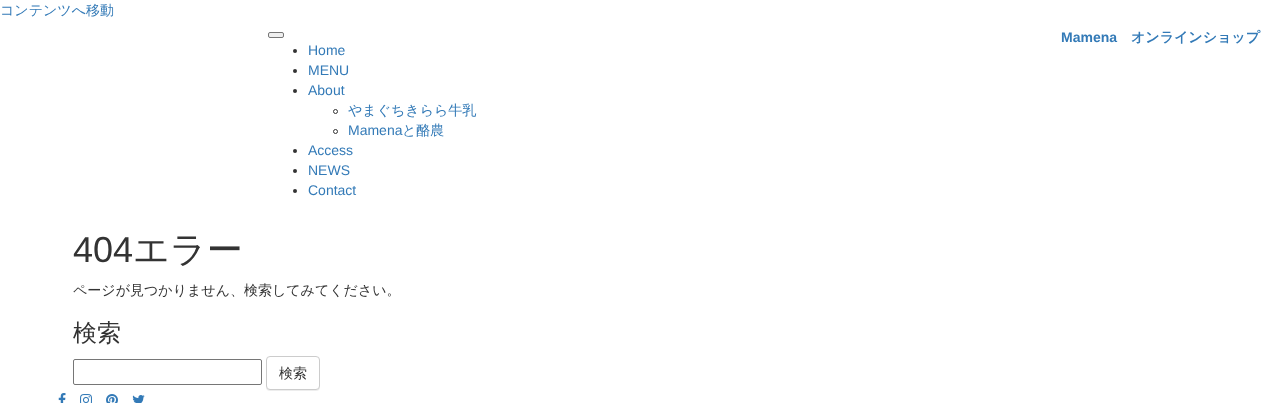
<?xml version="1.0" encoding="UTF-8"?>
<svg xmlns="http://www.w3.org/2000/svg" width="1286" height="403">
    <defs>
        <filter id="blur1" x="-50%" y="-200%" width="200%" height="500%"><feGaussianBlur stdDeviation="0.5"/></filter>
    </defs>
    <rect width="100%" height="100%" fill="#FFFFFF"/>
    <text x="0" y="15" font-family="WenQuanYi Zen Hei" font-size="14" font-weight="500" fill="#337AB7">コンテンツへ移動</text>
    <text x="1061" y="42" font-family="Liberation Sans" font-size="14" font-weight="700" fill="#337AB7">Mamena</text>
    <text x="1131" y="42" font-family="WenQuanYi Zen Hei" font-size="14" font-weight="700" fill="#337AB7">オンラインショップ</text>
    <rect x="268.5" y="32.5" width="15" height="5" rx="1.5" fill="#EFEFEF" stroke="#767676"/>
    <circle cx="295" cy="51" r="2" fill="#333333"/>
    <text x="308" y="55" font-family="Liberation Sans" font-size="14" fill="#337AB7">Home</text>
    <circle cx="295" cy="71" r="2" fill="#333333"/>
    <text x="308" y="75" font-family="Liberation Sans" font-size="14" fill="#337AB7">MENU</text>
    <circle cx="295" cy="91" r="2" fill="#333333"/>
    <text x="308" y="95" font-family="Liberation Sans" font-size="14" fill="#337AB7">About</text>
    <circle cx="335.5" cy="111.5" r="2" fill="none" stroke="#333333"/>
    <text x="348" y="115" font-family="WenQuanYi Zen Hei" font-size="14" font-weight="500" fill="#337AB7">やまぐちきらら牛乳</text>
    <circle cx="335.5" cy="131.5" r="2" fill="none" stroke="#333333"/>
    <text x="348" y="135" font-family="Liberation Sans" font-size="14" fill="#337AB7">Mamena</text>
    <text x="402" y="135" font-family="WenQuanYi Zen Hei" font-size="14" font-weight="500" fill="#337AB7">と酪農</text>
    <circle cx="295" cy="151" r="2" fill="#333333"/>
    <text x="308" y="155" font-family="Liberation Sans" font-size="14" fill="#337AB7">Access</text>
    <circle cx="295" cy="171" r="2" fill="#333333"/>
    <text x="308" y="175" font-family="Liberation Sans" font-size="14" fill="#337AB7">NEWS</text>
    <circle cx="295" cy="191" r="2" fill="#333333"/>
    <text x="308" y="195" font-family="Liberation Sans" font-size="14" fill="#337AB7">Contact</text>
    <text x="73" y="262" font-family="Liberation Sans" font-size="36" fill="#333333">404</text>
    <text x="133" y="262" font-family="WenQuanYi Zen Hei" font-size="36" font-weight="500" fill="#333333">エラー</text>
    <text x="73" y="295" font-family="WenQuanYi Zen Hei" font-size="14" font-weight="500" fill="#333333">ページが見つかりません、検索してみてください。</text>
    <text x="73" y="341" font-family="WenQuanYi Zen Hei" font-size="24" font-weight="500" fill="#333333">検索</text>
    <rect x="73.5" y="359.5" width="188" height="25" rx="1.5" fill="none" stroke="#767676"/>
    <rect x="266" y="357" width="54" height="34" rx="4" fill="#000000" fill-opacity="0.07" filter="url(#blur1)"/>
    <rect x="266.5" y="356.5" width="53" height="33" rx="3.5" fill="#FFFFFF" stroke="#CCCCCC"/>
    <text x="279" y="378" font-family="WenQuanYi Zen Hei" font-size="14" font-weight="500" fill="#333333">検索</text>
    <image x="58" y="393" width="8" height="10" href="img_01.png"/>
    <image x="80" y="394" width="12" height="9" href="img_02.png"/>
    <image x="106" y="394" width="12" height="9" href="img_03.png"/>
    <image x="132" y="395" width="13" height="8" href="img_04.png"/>
</svg>
